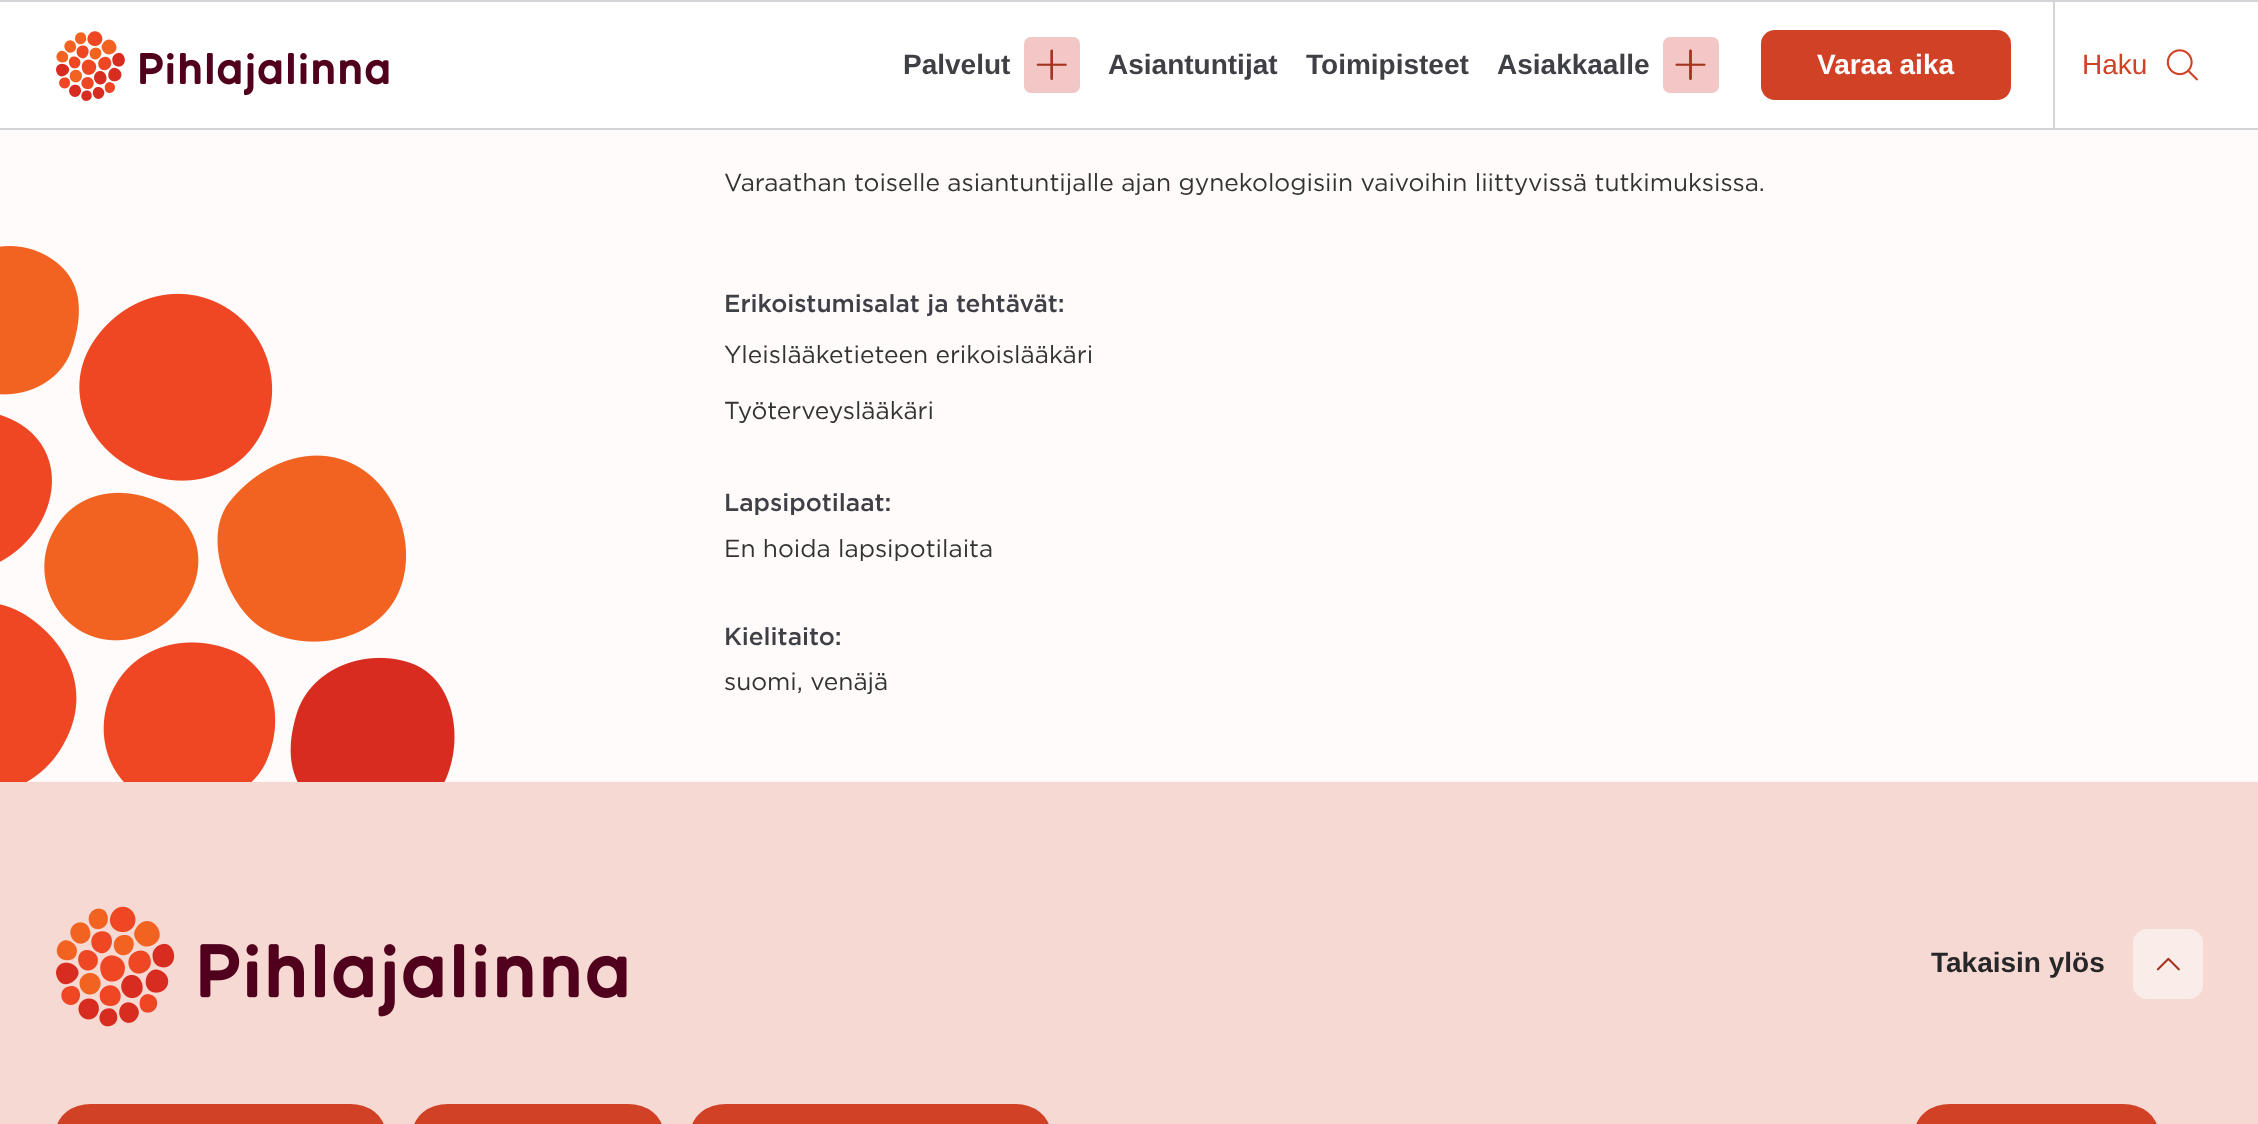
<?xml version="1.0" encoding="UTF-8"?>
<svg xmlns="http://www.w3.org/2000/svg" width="2258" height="1124">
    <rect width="100%" height="100%" fill="#FFFBFA"/>
    <rect x="0" y="2" width="2258" height="126" fill="#FFFFFF"/>
    <rect x="0" y="0" width="2258" height="2" fill="#D4D4D8"/>
    <image x="56" y="31" width="333" height="70" href="img_01.png"/>
    <text x="903" y="74" font-family="Liberation Sans" font-size="28" font-weight="700" fill="#3F3F46">Palvelut</text>
    <rect x="1024" y="37" width="56" height="56" rx="7" fill="#F2C7C5"/>
    <image x="1036" y="49" width="31" height="31" href="img_02.png"/>
    <text x="1108" y="74" font-family="Liberation Sans" font-size="28" font-weight="700" fill="#3F3F46">Asiantuntijat</text>
    <text x="1306" y="74" font-family="Liberation Sans" font-size="28" font-weight="700" fill="#3F3F46">Toimipisteet</text>
    <text x="1497" y="74" font-family="Liberation Sans" font-size="28" font-weight="700" fill="#3F3F46">Asiakkaalle</text>
    <rect x="1663" y="37" width="56" height="56" rx="7" fill="#F2C7C5"/>
    <image x="1675" y="49" width="31" height="31" href="img_03.png"/>
    <rect x="1761" y="30" width="250" height="70" rx="14" fill="#D04125"/>
    <text x="1817" y="74" font-family="Liberation Sans" font-size="28" font-weight="700" fill="#FFFFFF">Varaa aika</text>
    <rect x="2053" y="2" width="2" height="126" fill="#D4D4D8"/>
    <text x="2082" y="74" font-family="Liberation Sans" font-size="28" fill="#D04125">Haku</text>
    <image x="2166" y="49" width="32" height="32" href="img_04.png"/>
    <rect x="0" y="128" width="2258" height="2" fill="#D4D4D8"/>
    <image x="0" y="246" width="455" height="536" href="img_05.png"/>
    <text x="724" y="191" font-family="'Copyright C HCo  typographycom'" font-size="24.5" font-weight="300" fill="#333333">Varaathan toiselle asiantuntijalle ajan gynekologisiin vaivoihin liittyvissä tutkimuksissa.</text>
    <text x="724" y="312" font-family="'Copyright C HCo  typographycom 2'" font-size="24.5" font-weight="300" fill="#3F3F46">Erikoistumisalat ja tehtävät:</text>
    <text x="724" y="363" font-family="'Copyright C HCo  typographycom'" font-size="24.5" font-weight="300" fill="#333333">Yleislääketieteen erikoislääkäri</text>
    <text x="724" y="419" font-family="'Copyright C HCo  typographycom'" font-size="24.5" font-weight="300" fill="#333333">Työterveyslääkäri</text>
    <text x="724" y="511" font-family="'Copyright C HCo  typographycom 2'" font-size="24.5" font-weight="300" fill="#3F3F46">Lapsipotilaat:</text>
    <text x="724" y="557" font-family="'Copyright C HCo  typographycom'" font-size="24.5" font-weight="300" fill="#333333">En hoida lapsipotilaita</text>
    <text x="724" y="645" font-family="'Copyright C HCo  typographycom 2'" font-size="24.5" font-weight="300" fill="#3F3F46">Kielitaito:</text>
    <text x="724" y="690" font-family="'Copyright C HCo  typographycom'" font-size="24.5" font-weight="300" fill="#333333">suomi, venäjä</text>
    <rect x="0" y="782" width="2258" height="342" fill="#F6D9D3"/>
    <image x="56" y="906" width="571" height="121" href="img_06.png"/>
    <text x="1931" y="972" font-family="Liberation Sans" font-size="28" font-weight="700" fill="#27272A">Takaisin ylös</text>
    <rect x="2133" y="929" width="70" height="70" rx="14" fill="#FAECE9"/>
    <image x="2156" y="957" width="24" height="14" href="img_07.png"/>
    <rect x="56" y="1104" width="329" height="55" rx="35" fill="#D04125"/>
    <rect x="413" y="1104" width="250" height="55" rx="35" fill="#D04125"/>
    <rect x="691" y="1104" width="359" height="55" rx="35" fill="#D04125"/>
    <rect x="1915" y="1104" width="243" height="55" rx="35" fill="#D04125"/>
</svg>
